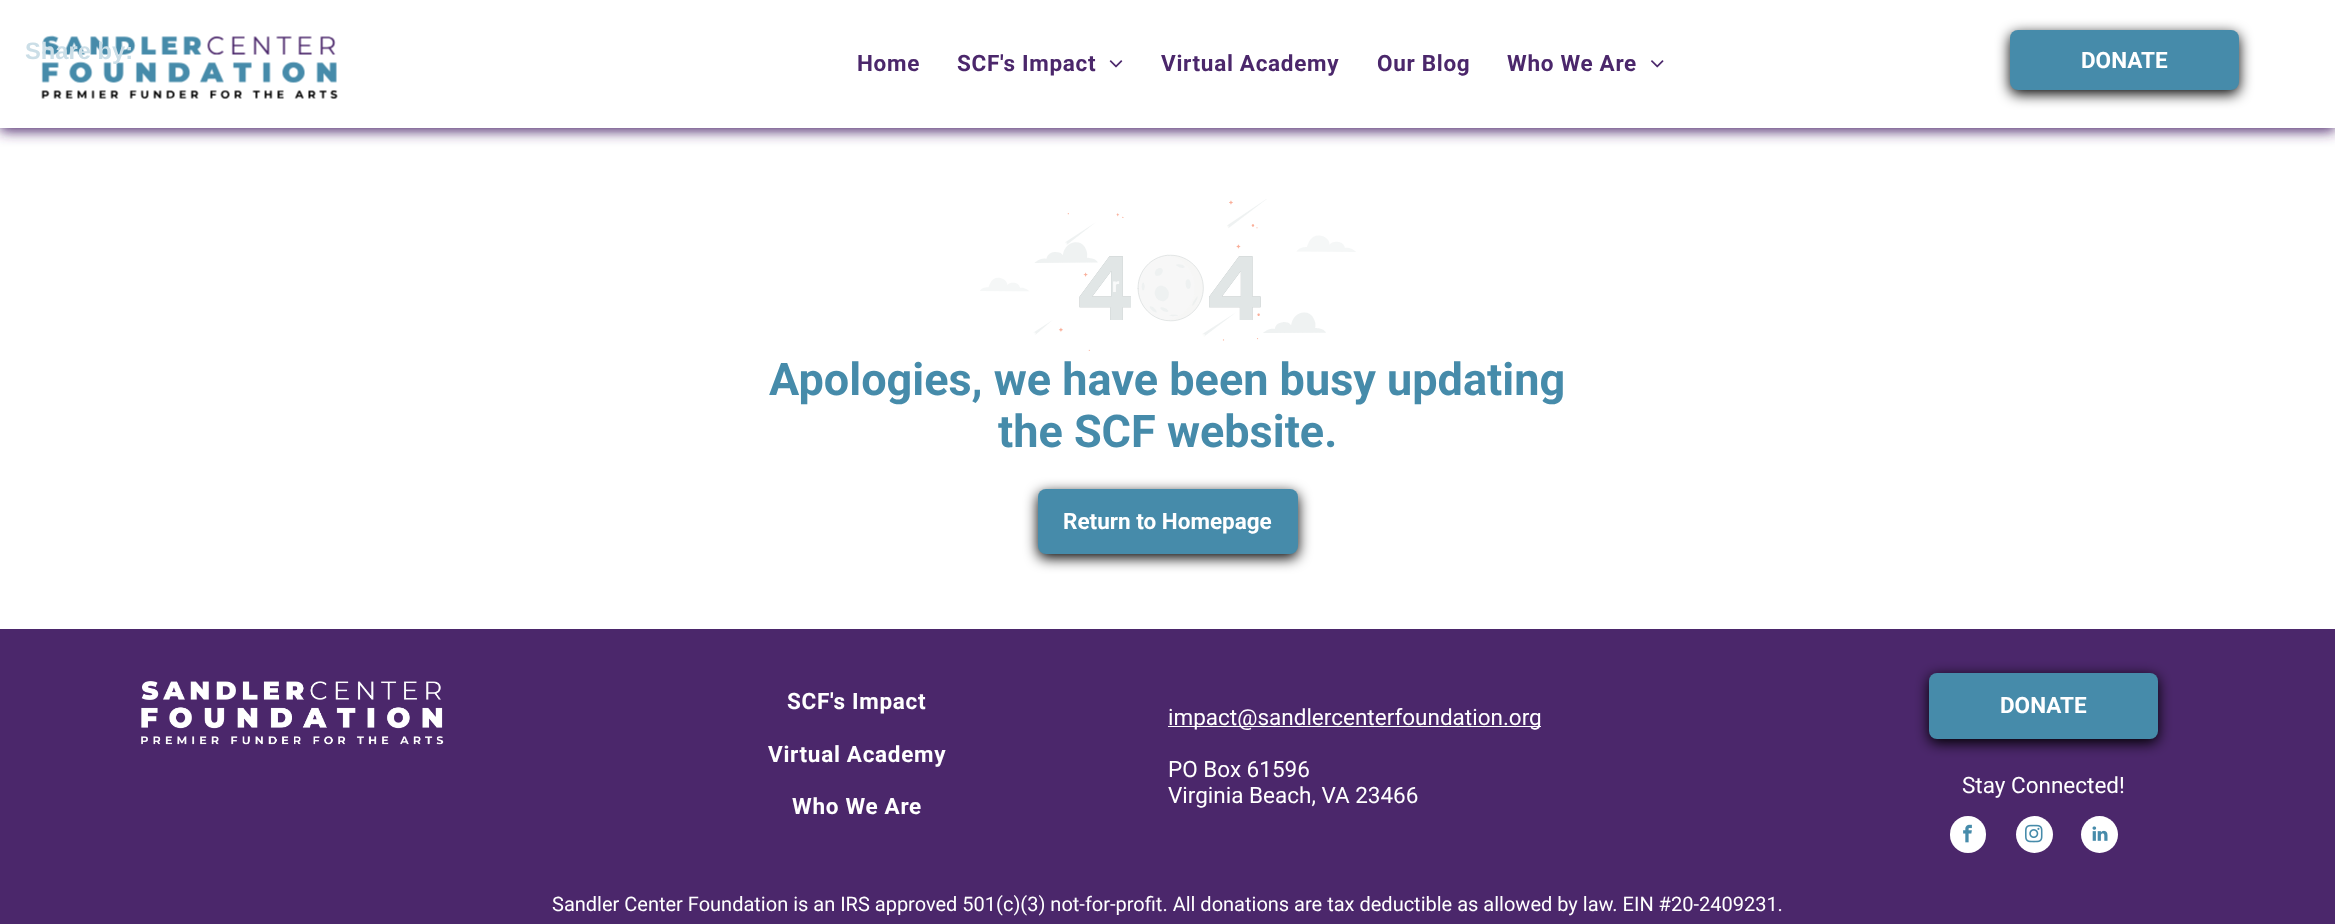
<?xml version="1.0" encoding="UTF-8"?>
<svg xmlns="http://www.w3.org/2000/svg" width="2335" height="924">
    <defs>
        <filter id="blur1" x="-50%" y="-200%" width="200%" height="500%"><feGaussianBlur stdDeviation="7"/></filter>
    </defs>
    <rect width="100%" height="100%" fill="#FFFFFF"/>
    <rect x="0" y="4" width="2335" height="127" fill="#4B276B" filter="url(#blur1)"/>
    <rect x="0" y="0" width="2335" height="128" fill="#FFFFFF"/>
    <image x="41" y="35" width="297" height="64" href="img_01.png"/>
    <text x="25" y="59" font-family="Liberation Sans" font-size="23.75" font-weight="700" fill="#CBDEE7">Share by:</text>
    <text x="857" y="71" font-family="Roboto" font-size="22.5" font-weight="700" letter-spacing="0.7" fill="#4B276B">Home</text>
    <text x="957" y="71" font-family="Roboto" font-size="22.5" font-weight="700" letter-spacing="0.7" fill="#4B276B">SCF's Impact</text>
    <image x="1109" y="60" width="14" height="8" href="img_02.png"/>
    <image x="980" y="199" width="376" height="152" href="img_04.png"/>
    <text x="1112" y="292" font-family="Roboto" font-size="20" font-weight="700" letter-spacing="1" fill="#F9FAFA">r</text>
    <text x="1161" y="71" font-family="Roboto" font-size="22.5" font-weight="700" letter-spacing="0.7" fill="#4B276B">Virtual Academy</text>
    <text x="1377" y="71" font-family="Roboto" font-size="22.5" font-weight="700" letter-spacing="0.7" fill="#4B276B">Our Blog</text>
    <text x="1507" y="71" font-family="Roboto" font-size="22.5" font-weight="700" letter-spacing="0.7" fill="#4B276B">Who We Are</text>
    <image x="1651" y="60" width="13" height="8" href="img_03.png"/>
    <rect x="2010" y="34" width="229" height="60" rx="8" fill="#000000" filter="url(#blur1)"/>
    <rect x="2010" y="30" width="229" height="60" rx="8" fill="#468BAA"/>
    <text x="2081" y="68" font-family="Roboto" font-size="22.5" font-weight="700" fill="#FFFFFF">DONATE</text>
    <text x="769" y="395" font-family="Roboto" font-size="45" font-weight="700" fill="#468BAA">Apologies, we have been busy updating</text>
    <text x="998" y="447" font-family="Roboto" font-size="45" font-weight="700" fill="#468BAA">the SCF website.</text>
    <rect x="1038" y="493" width="260" height="65" rx="8" fill="#000000" filter="url(#blur1)"/>
    <rect x="1038" y="489" width="260" height="65" rx="8" fill="#468BAA"/>
    <text x="1063" y="529" font-family="Roboto" font-size="22.5" font-weight="700" fill="#FFFFFF">Return to Homepage</text>
    <rect x="0" y="629" width="2335" height="295" fill="#4B276B"/>
    <image x="141" y="681" width="303" height="64" href="img_05.png"/>
    <text x="787" y="709" font-family="Roboto" font-size="22.5" font-weight="700" letter-spacing="0.7" fill="#FFFFFF">SCF's Impact</text>
    <text x="768" y="762" font-family="Roboto" font-size="22.5" font-weight="700" letter-spacing="0.7" fill="#FFFFFF">Virtual Academy</text>
    <text x="792" y="814" font-family="Roboto" font-size="22.5" font-weight="700" letter-spacing="0.7" fill="#FFFFFF">Who We Are</text>
    <rect x="1168" y="726" width="373" height="1" fill="#FFFFFF"/>
    <text x="1168" y="725" font-family="Roboto" font-size="22.5" fill="#FFFFFF">impact@sandlercenterfoundation.org</text>
    <text font-family="Roboto" font-size="22.5" fill="#FFFFFF">
        <tspan x="1168" y="777">PO Box 61596</tspan>
        <tspan x="1168" y="803">Virginia Beach, VA 23466</tspan>
    </text>
    <rect x="1929" y="676" width="229" height="67" rx="8" fill="#000000" filter="url(#blur1)"/>
    <rect x="1929" y="673" width="229" height="66" rx="8" fill="#468BAA"/>
    <text x="2000" y="713" font-family="Roboto" font-size="22.5" font-weight="700" fill="#FFFFFF">DONATE</text>
    <text x="1962" y="793" font-family="Roboto" font-size="22.5" fill="#FFFFFF">Stay Connected!</text>
    <rect x="1950" y="816" width="36" height="37" rx="18" fill="#FFFFFF"/>
    <image x="1963" y="824" width="9" height="19" href="img_06.png"/>
    <circle cx="2034.5" cy="834.5" r="18.5" fill="#FFFFFF"/>
    <image x="2025" y="824" width="18" height="19" href="img_07.png"/>
    <circle cx="2099.5" cy="834.5" r="18.5" fill="#FFFFFF"/>
    <image x="2092" y="826" width="16" height="15" href="img_08.png"/>
    <text x="552" y="911" font-family="Roboto" font-size="20" fill="#FFFFFF">Sandler Center Foundation is an IRS approved 501(c)(3) not-for-profit. All donations are tax deductible as allowed by law. EIN #20-2409231.</text>
</svg>
